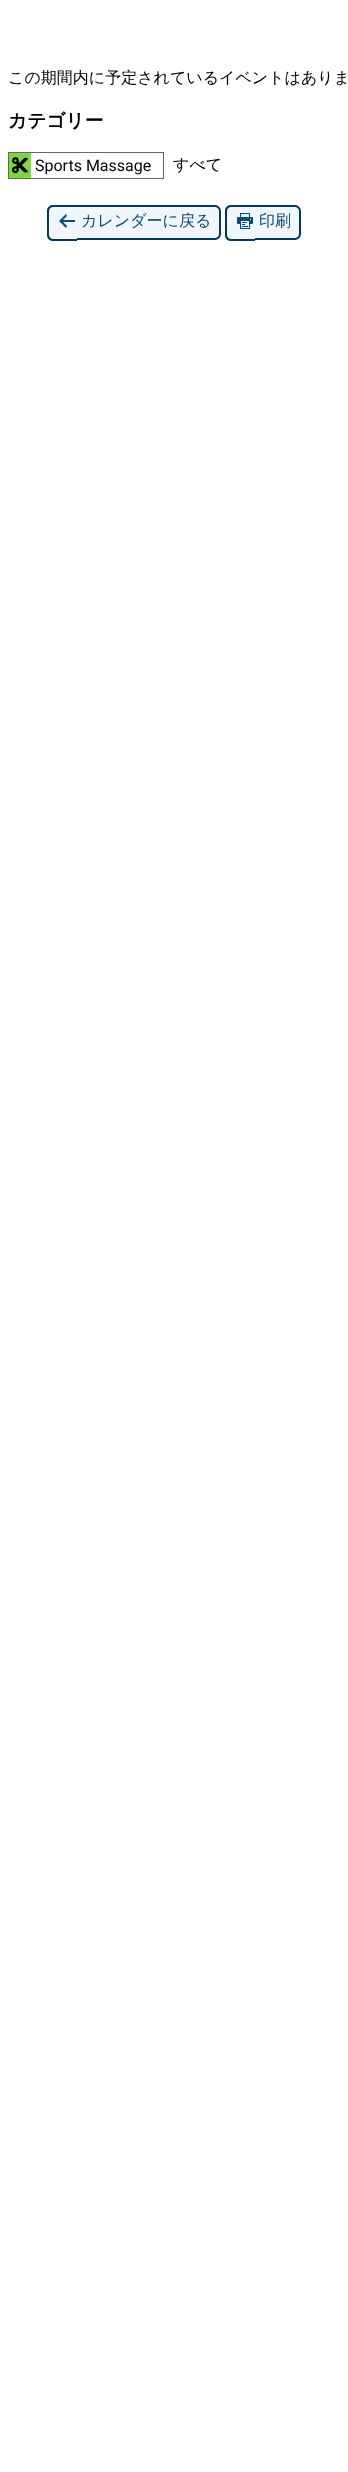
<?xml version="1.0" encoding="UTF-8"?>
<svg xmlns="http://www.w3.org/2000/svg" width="348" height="2472">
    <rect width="100%" height="100%" fill="#FFFFFF"/>
    <text x="8" y="83" font-family="WenQuanYi Zen Hei" font-size="16" font-weight="500" fill="#000000">この期間内に予定されているイベントはありま</text>
    <text x="8" y="127" font-family="WenQuanYi Zen Hei" font-size="18.75" font-weight="700" fill="#000000">カテゴリー</text>
    <rect x="8.5" y="152.5" width="155" height="26" fill="none" stroke="#666666"/>
    <rect x="9" y="153" width="22" height="25" fill="#81D742"/>
    <image x="12" y="157" width="16" height="17" href="img_01.png"/>
    <text x="35" y="171" font-family="Roboto" font-size="16" fill="#000000">Sports Massage</text>
    <text x="173" y="170" font-family="WenQuanYi Zen Hei" font-size="16" font-weight="500" fill="#000000">すべて</text>
    <path d="M 53 205 H 77 V 241 H 53 C 49.5 241 47 238.5 47 235 V 211 C 47 207.5 49.5 205 53 205 Z" fill="#F0F6FC"/>
    <path d="M 53 205 H 77 V 241 H 53 C 49.5 241 47 238.5 47 235 V 211 C 47 207.5 49.5 205 53 205 Z M 53 207 H 77 V 239 H 53 C 51 239 49 237 49 235 V 211 C 49 209 51 207 53 207 Z" fill="#043959" fill-rule="evenodd"/>
    <path d="M 77 205 H 215 C 218.5 205 221 207.5 221 211 V 234 C 221 237.5 218.5 240 215 240 H 77 Z" fill="#F0F6FC"/>
    <path d="M 77 205 H 215 C 218 205 221 208 221 211 V 234 C 221 237 218 240 215 240 H 77 Z M 77 207 H 215 C 217 207 219 209 219 211 V 234 C 219 236 217 238 215 238 H 77 Z" fill="#043959" fill-rule="evenodd"/>
    <image x="59" y="214" width="16" height="14" href="img_02.png"/>
    <text x="81" y="226" font-family="WenQuanYi Zen Hei" font-size="16" font-weight="500" fill="#0A4B78">カレンダーに戻る</text>
    <path d="M 231 205 H 255 V 241 H 231 C 227.5 241 225 238.5 225 235 V 211 C 225 207.5 227.5 205 231 205 Z" fill="#F0F6FC"/>
    <path d="M 231 205 H 255 V 241 H 231 C 227.5 241 225 238.5 225 235 V 211 C 225 207.5 227.5 205 231 205 Z M 231 207 H 255 V 239 H 231 C 229 239 227 237 227 235 V 211 C 227 209 229 207 231 207 Z" fill="#043959" fill-rule="evenodd"/>
    <path d="M 255 205 H 295 C 298.5 205 301 207.5 301 211 V 234 C 301 237.5 298.5 240 295 240 H 255 Z" fill="#F0F6FC"/>
    <path d="M 255 205 H 295 C 298 205 301 208 301 211 V 234 C 301 237 298 240 295 240 H 255 Z M 255 207 H 295 C 297 207 299 209 299 211 V 234 C 299 236 297 238 295 238 H 255 Z" fill="#043959" fill-rule="evenodd"/>
    <image x="237" y="213" width="16" height="16" href="img_03.png"/>
    <text x="259" y="226" font-family="WenQuanYi Zen Hei" font-size="16" font-weight="500" fill="#0A4B78">印刷</text>
</svg>
